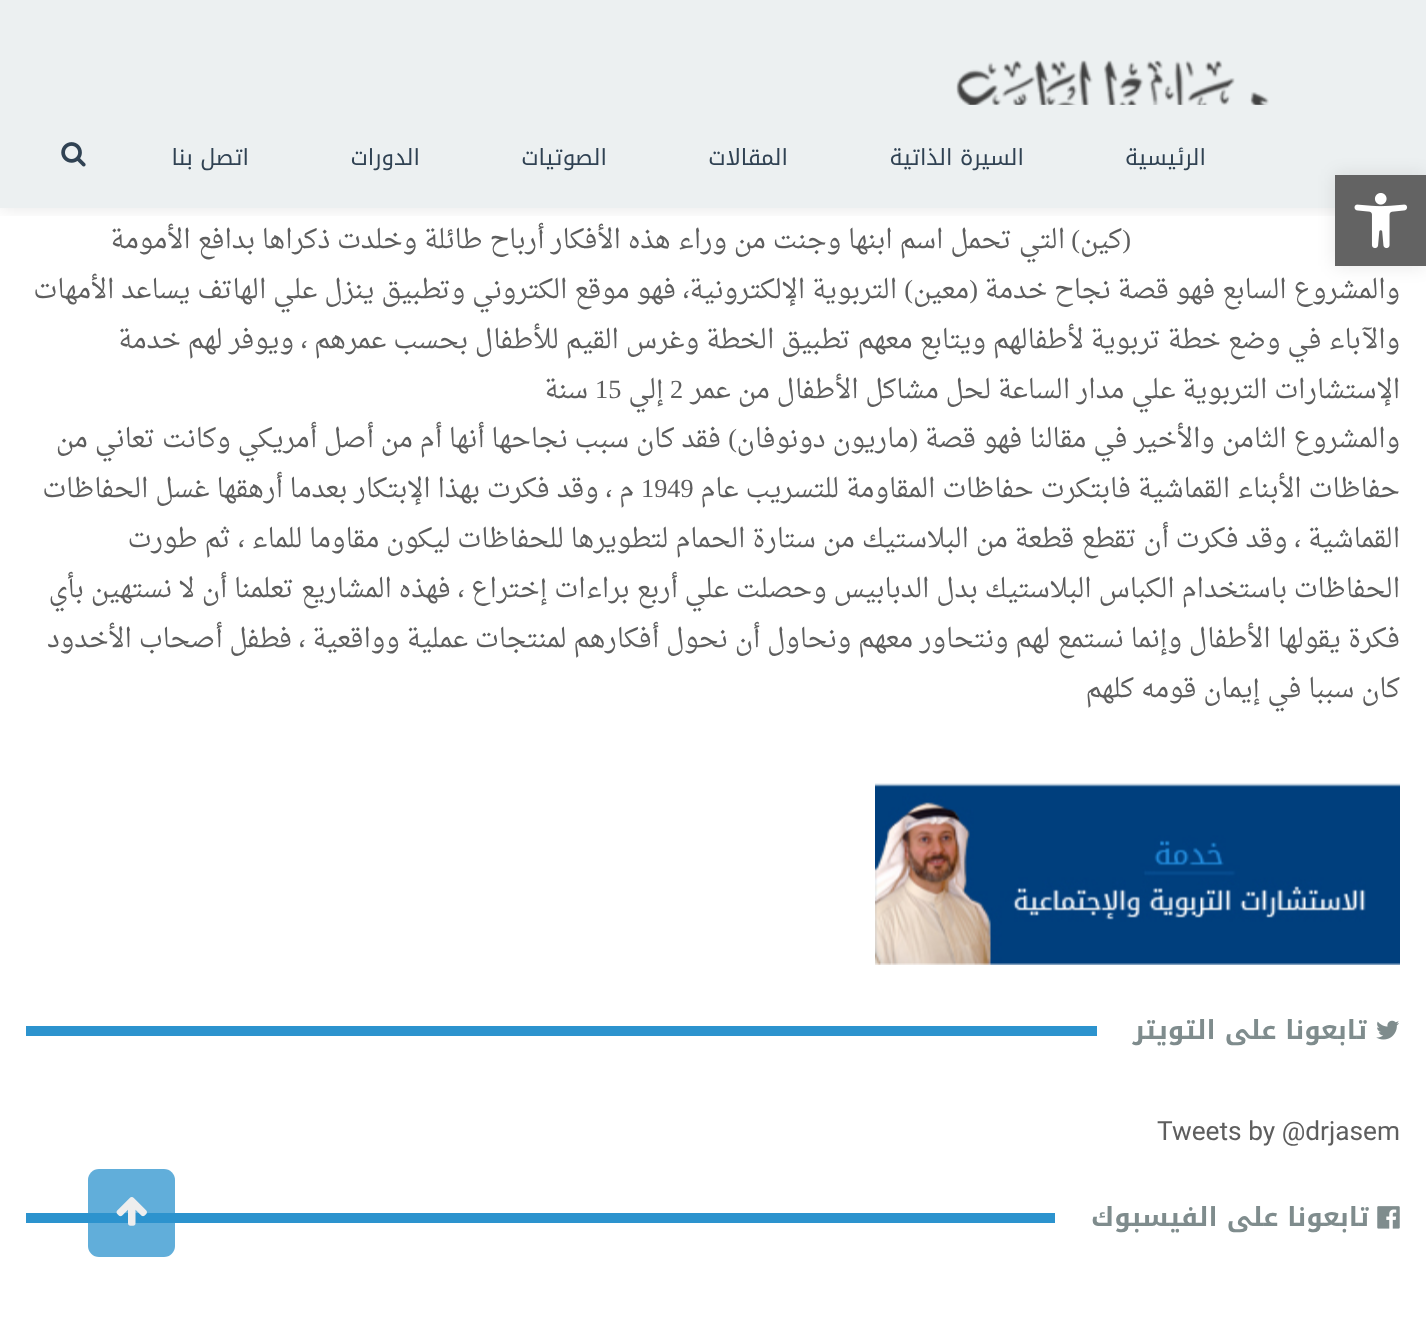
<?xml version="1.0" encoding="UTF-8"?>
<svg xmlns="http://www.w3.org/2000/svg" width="1426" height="1344">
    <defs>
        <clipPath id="clip1"><rect x="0" y="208" width="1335" height="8"/></clipPath>
        <filter id="blur1" x="-50%" y="-200%" width="200%" height="500%"><feGaussianBlur stdDeviation="9"/></filter>
    </defs>
    <rect width="100%" height="100%" fill="#FFFFFF"/>
    <g clip-path="url(#clip1)">
        <rect x="0" y="0" width="1426" height="208" fill="#000000" fill-opacity="0.1" filter="url(#blur1)"/>
    </g>
    <rect x="0" y="0" width="1426" height="208" fill="#ECF0F1" fill-opacity="0.98"/>
    <image x="956" y="60" width="313" height="45" href="img_01.png"/>
    <text x="1206" y="165" font-family="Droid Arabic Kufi" font-size="22.25" direction="rtl" fill="#304253">الرئيسية</text>
    <text x="1024" y="165" font-family="Droid Arabic Kufi" font-size="22.25" direction="rtl" fill="#304253">السيرة الذاتية</text>
    <text x="788" y="165" font-family="Droid Arabic Kufi" font-size="22.25" direction="rtl" fill="#304253">المقالات</text>
    <text x="607" y="165" font-family="Droid Arabic Kufi" font-size="22.25" direction="rtl" fill="#304253">الصوتيات</text>
    <text x="420" y="165" font-family="Droid Arabic Kufi" font-size="22.25" direction="rtl" fill="#304253">الدورات</text>
    <text x="249" y="165" font-family="Droid Arabic Kufi" font-size="22.25" direction="rtl" fill="#304253">اتصل بنا</text>
    <image x="61" y="142" width="25" height="25" href="img_02.png"/>
    <text x="1131" y="248" font-family="Liberation Serif" font-size="26.25" direction="rtl" fill="#5E5E5E">(</text>
    <text x="1122" y="248" font-family="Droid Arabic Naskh" font-size="26.25" direction="rtl" fill="#5E5E5E">كين</text>
    <text x="1080" y="248" font-family="Liberation Serif" font-size="26.25" direction="rtl" fill="#5E5E5E">)</text>
    <text x="1065" y="248" font-family="Droid Arabic Naskh" font-size="26.25" direction="rtl" fill="#5E5E5E">التي تحمل اسم ابنها وجنت من وراء هذه الأفكار أرباح طائلة وخلدت ذكراها بدافع الأمومة</text>
    <text x="1400" y="298" font-family="Droid Arabic Naskh" font-size="26.25" direction="rtl" fill="#5E5E5E">والمشروع السابع فهو قصة نجاح خدمة</text>
    <text x="978" y="298" font-family="Liberation Serif" font-size="26.25" direction="rtl" fill="#5E5E5E">(</text>
    <text x="969" y="298" font-family="Droid Arabic Naskh" font-size="26.25" direction="rtl" fill="#5E5E5E">معين</text>
    <text x="913" y="298" font-family="Liberation Serif" font-size="26.25" direction="rtl" fill="#5E5E5E">)</text>
    <text x="897" y="298" font-family="Droid Arabic Naskh" font-size="26.25" direction="rtl" fill="#5E5E5E">التربوية الإلكترونية، فهو موقع الكتروني وتطبيق ينزل علي الهاتف يساعد الأمهات</text>
    <text font-family="Droid Arabic Naskh" font-size="26.25" direction="rtl" fill="#5E5E5E">
        <tspan x="1400" y="348">والآباء في وضع خطة تربوية لأطفالهم ويتابع معهم تطبيق الخطة وغرس القيم للأطفال بحسب عمرهم ، ويوفر لهم خدمة</tspan>
        <tspan x="1400" y="398">الإستشارات التربوية علي مدار الساعة لحل مشاكل الأطفال من عمر</tspan>
    </text>
    <text x="670" y="398" font-family="Liberation Serif" font-size="26.25" fill="#5E5E5E">2</text>
    <text x="664" y="398" font-family="Droid Arabic Naskh" font-size="26.25" direction="rtl" fill="#5E5E5E">إلي</text>
    <text x="595" y="398" font-family="Liberation Serif" font-size="26.25" fill="#5E5E5E">15</text>
    <text x="588" y="398" font-family="Droid Arabic Naskh" font-size="26.25" direction="rtl" fill="#5E5E5E">سنة</text>
    <text x="1400" y="447" font-family="Droid Arabic Naskh" font-size="26.25" direction="rtl" fill="#5E5E5E">والمشروع الثامن والأخير في مقالنا فهو قصة</text>
    <text x="918" y="447" font-family="Liberation Serif" font-size="26.25" direction="rtl" fill="#5E5E5E">(</text>
    <text x="909" y="447" font-family="Droid Arabic Naskh" font-size="26.25" direction="rtl" fill="#5E5E5E">ماريون دونوفان</text>
    <text x="737" y="447" font-family="Liberation Serif" font-size="26.25" direction="rtl" fill="#5E5E5E">)</text>
    <text x="721" y="447" font-family="Droid Arabic Naskh" font-size="26.25" direction="rtl" fill="#5E5E5E">فقد كان سبب نجاحها أنها أم من أصل أمريكي وكانت تعاني من</text>
    <text x="1400" y="497" font-family="Droid Arabic Naskh" font-size="26.25" direction="rtl" fill="#5E5E5E">حفاظات الأبناء القماشية فابتكرت حفاظات المقاومة للتسريب عام</text>
    <text x="641" y="497" font-family="Liberation Serif" font-size="26.25" fill="#5E5E5E">1949</text>
    <text x="634" y="497" font-family="Droid Arabic Naskh" font-size="26.25" direction="rtl" fill="#5E5E5E">م ، وقد فكرت بهذا الإبتكار بعدما أرهقها غسل الحفاظات</text>
    <text font-family="Droid Arabic Naskh" font-size="26.25" direction="rtl" fill="#5E5E5E">
        <tspan x="1400" y="547">القماشية ، وقد فكرت أن تقطع قطعة من البلاستيك من ستارة الحمام لتطويرها للحفاظات ليكون مقاوما للماء ، ثم طورت</tspan>
        <tspan x="1400" y="597">الحفاظات باستخدام الكباس البلاستيك بدل الدبابيس وحصلت علي أربع براءات إختراع ، فهذه المشاريع تعلمنا أن لا نستهين بأي</tspan>
        <tspan x="1400" y="647">فكرة يقولها الأطفال وإنما نستمع لهم ونتحاور معهم ونحاول أن نحول أفكارهم لمنتجات عملية وواقعية ، فطفل أصحاب الأخدود</tspan>
        <tspan x="1400" y="697">كان سببا في إيمان قومه كلهم</tspan>
    </text>
    <image x="875" y="783" width="525" height="182" href="img_03.png"/>
    <image x="1376" y="1020" width="23" height="20" href="img_04.png"/>
    <text x="1367" y="1039" font-family="Droid Arabic Kufi" font-size="26.25" font-weight="700" direction="rtl" fill="#7F8C8D">تابعونا على التويتر</text>
    <rect x="26" y="1026" width="1071" height="10" fill="#2C93CE"/>
    <text x="1157" y="1140" font-family="Roboto" font-size="26.25" fill="#5E5E5E">Tweets by @drjasem</text>
    <image x="1377" y="1206" width="23" height="23" href="img_05.png"/>
    <text x="1369" y="1226" font-family="Droid Arabic Kufi" font-size="26.25" font-weight="700" direction="rtl" fill="#7F8C8D">تابعونا على الفيسبوك</text>
    <rect x="26" y="1213" width="1029" height="10" fill="#2C93CE"/>
    <rect x="1335" y="175" width="91" height="91" fill="#000000" fill-opacity="0.1" filter="url(#blur1)"/>
    <rect x="1335" y="175" width="91" height="91" fill="#636363"/>
    <image x="1354" y="193" width="54" height="56" href="img_06.png"/>
    <rect x="88" y="1169" width="87" height="88" rx="11" fill="#2C93CE" fill-opacity="0.75"/>
    <image x="116" y="1197" width="31" height="29" href="img_07.png"/>
</svg>
